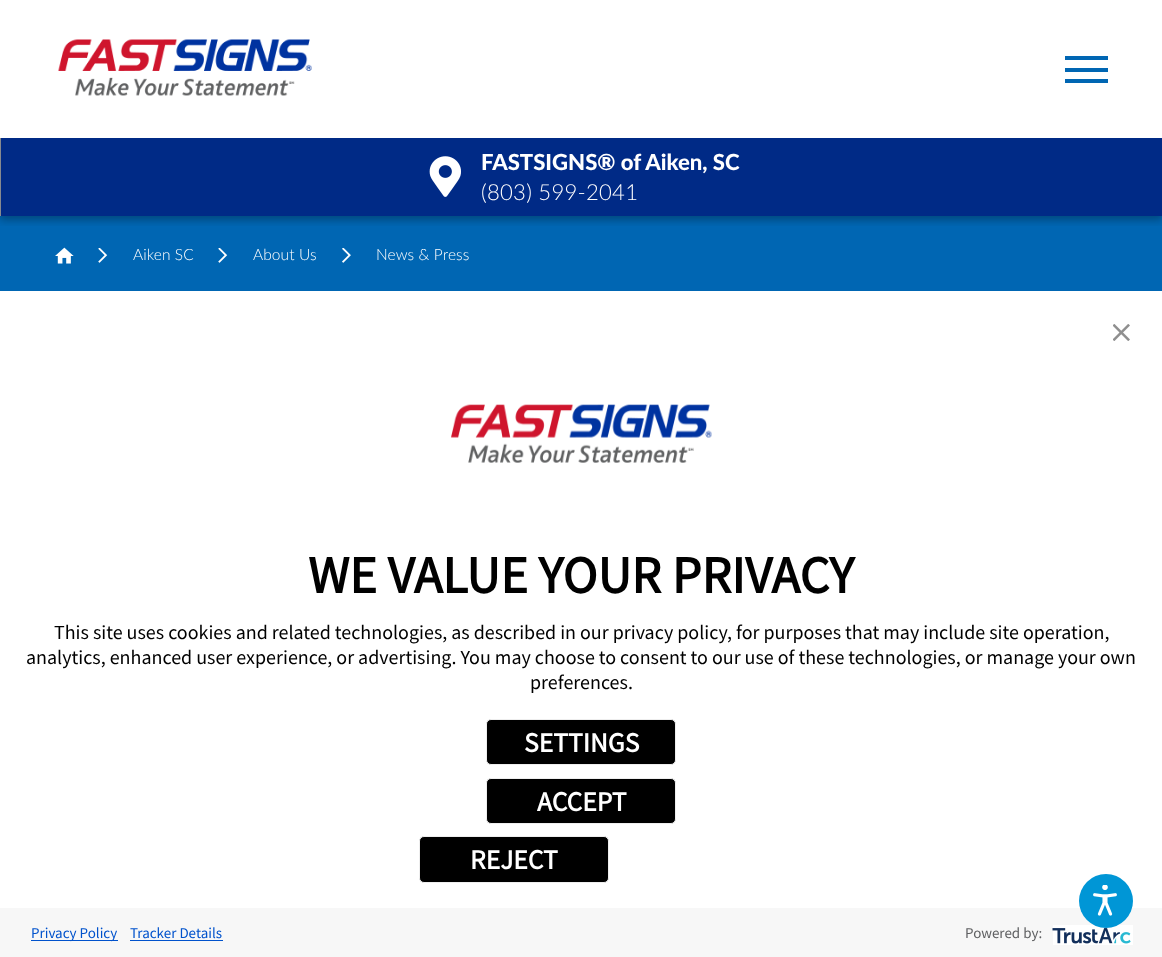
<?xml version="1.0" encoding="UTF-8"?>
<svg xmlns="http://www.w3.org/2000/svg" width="1162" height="957">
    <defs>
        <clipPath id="clip1"><rect x="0" y="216" width="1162" height="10"/></clipPath>
        <filter id="blur1" x="-50%" y="-200%" width="200%" height="500%"><feGaussianBlur stdDeviation="4"/></filter>
    </defs>
    <rect width="100%" height="100%" fill="#FFFFFF"/>
    <rect x="0" y="216" width="1162" height="75" fill="#0066B3"/>
    <g clip-path="url(#clip1)">
        <rect x="0" y="4" width="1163" height="216" fill="#000000" fill-opacity="0.3" filter="url(#blur1)"/>
    </g>
    <image x="58" y="39" width="254" height="57" href="img_01.png"/>
    <rect x="1065" y="56" width="43" height="4" fill="#0066B3"/>
    <rect x="1065" y="68" width="43" height="4" fill="#0066B3"/>
    <rect x="1065" y="79" width="43" height="4" fill="#0066B3"/>
    <rect x="1" y="138" width="1161" height="78" fill="#002A86"/>
    <rect x="0" y="138" width="1" height="78" fill="#86898F"/>
    <image x="429" y="156" width="32" height="41" href="img_02.png"/>
    <text x="481" y="170" font-family="Lato" font-size="22.1" font-weight="900" fill="#FFFFFF">FASTSIGNS® of Aiken, SC</text>
    <text x="481" y="200" font-family="Lato" font-size="22.1" font-weight="300" letter-spacing="0.25" fill="#FFFFFF">(803) 599-2041</text>
    <image x="1113" y="324" width="17" height="17" href="img_03.png"/>
    <image x="451" y="404" width="261" height="59" href="img_04.png"/>
    <text x="308" y="593" font-family="Source Sans Pro" font-size="52.5" font-weight="700" fill="#000000">WE VALUE YOUR PRIVACY</text>
    <text x="54" y="639" font-family="Source Sans Pro" font-size="20" fill="#000000">This site uses cookies and related technologies, as described in our privacy policy, for purposes that may include site operation,</text>
    <text x="26" y="664" font-family="Source Sans Pro" font-size="20" fill="#000000">analytics, enhanced user experience, or advertising. You may choose to consent to our use of these technologies, or manage your own</text>
    <text x="530" y="689" font-family="Source Sans Pro" font-size="20" fill="#000000">preferences.</text>
    <rect x="486.5" y="719.5" width="189" height="45" rx="4.5" fill="#000000" stroke="#EEEEEE"/>
    <text x="524" y="752" font-family="Source Sans Pro" font-size="27.5" font-weight="700" fill="#FFFFFF">SETTINGS</text>
    <rect x="486.5" y="778.5" width="189" height="45" rx="4.5" fill="#000000" stroke="#EEEEEE"/>
    <text x="537" y="811" font-family="Source Sans Pro" font-size="27.5" font-weight="700" fill="#FFFFFF">ACCEPT</text>
    <rect x="419.5" y="836.5" width="189" height="46" rx="4.5" fill="#000000" stroke="#EEEEEE"/>
    <text x="470" y="869" font-family="Source Sans Pro" font-size="27.5" font-weight="700" fill="#FFFFFF">REJECT</text>
    <rect x="0" y="908" width="1162" height="49" fill="#F7F7F7"/>
    <rect x="31" y="940" width="87" height="1" fill="#0052CC"/>
    <text x="31" y="938" font-family="Source Sans Pro" font-size="15" fill="#0052CC">Privacy Policy</text>
    <text x="130" y="938" font-family="Source Sans Pro" font-size="15" fill="#0052CC">Tracker Details</text>
    <rect x="130" y="940" width="93" height="1" fill="#0052CC"/>
    <text x="965" y="938" font-family="Source Sans Pro" font-size="15" fill="#5F6062">Powered by:</text>
    <image x="1052" y="925" width="81" height="20" href="img_05.png"/>
    <image x="55" y="247" width="19" height="17" href="img_06.png"/>
    <image x="98" y="248" width="10" height="15" href="img_07.png"/>
    <text x="133" y="260" font-family="Lato" font-size="15.5" font-weight="300" letter-spacing="0.1" fill="#FFFFFF">Aiken SC</text>
    <image x="218" y="248" width="10" height="15" href="img_07.png"/>
    <text x="253" y="260" font-family="Lato" font-size="15.5" font-weight="300" letter-spacing="0.1" fill="#FFFFFF">About Us</text>
    <image x="342" y="248" width="9" height="15" href="img_08.png"/>
    <text x="376" y="260" font-family="Lato" font-size="15.5" font-weight="300" letter-spacing="0.1" fill="#FFFFFF">News &amp; Press</text>
    <circle cx="1106" cy="901" r="27" fill="#0096D6"/>
    <image x="1093" y="885" width="24" height="31" href="img_09.png"/>
</svg>
